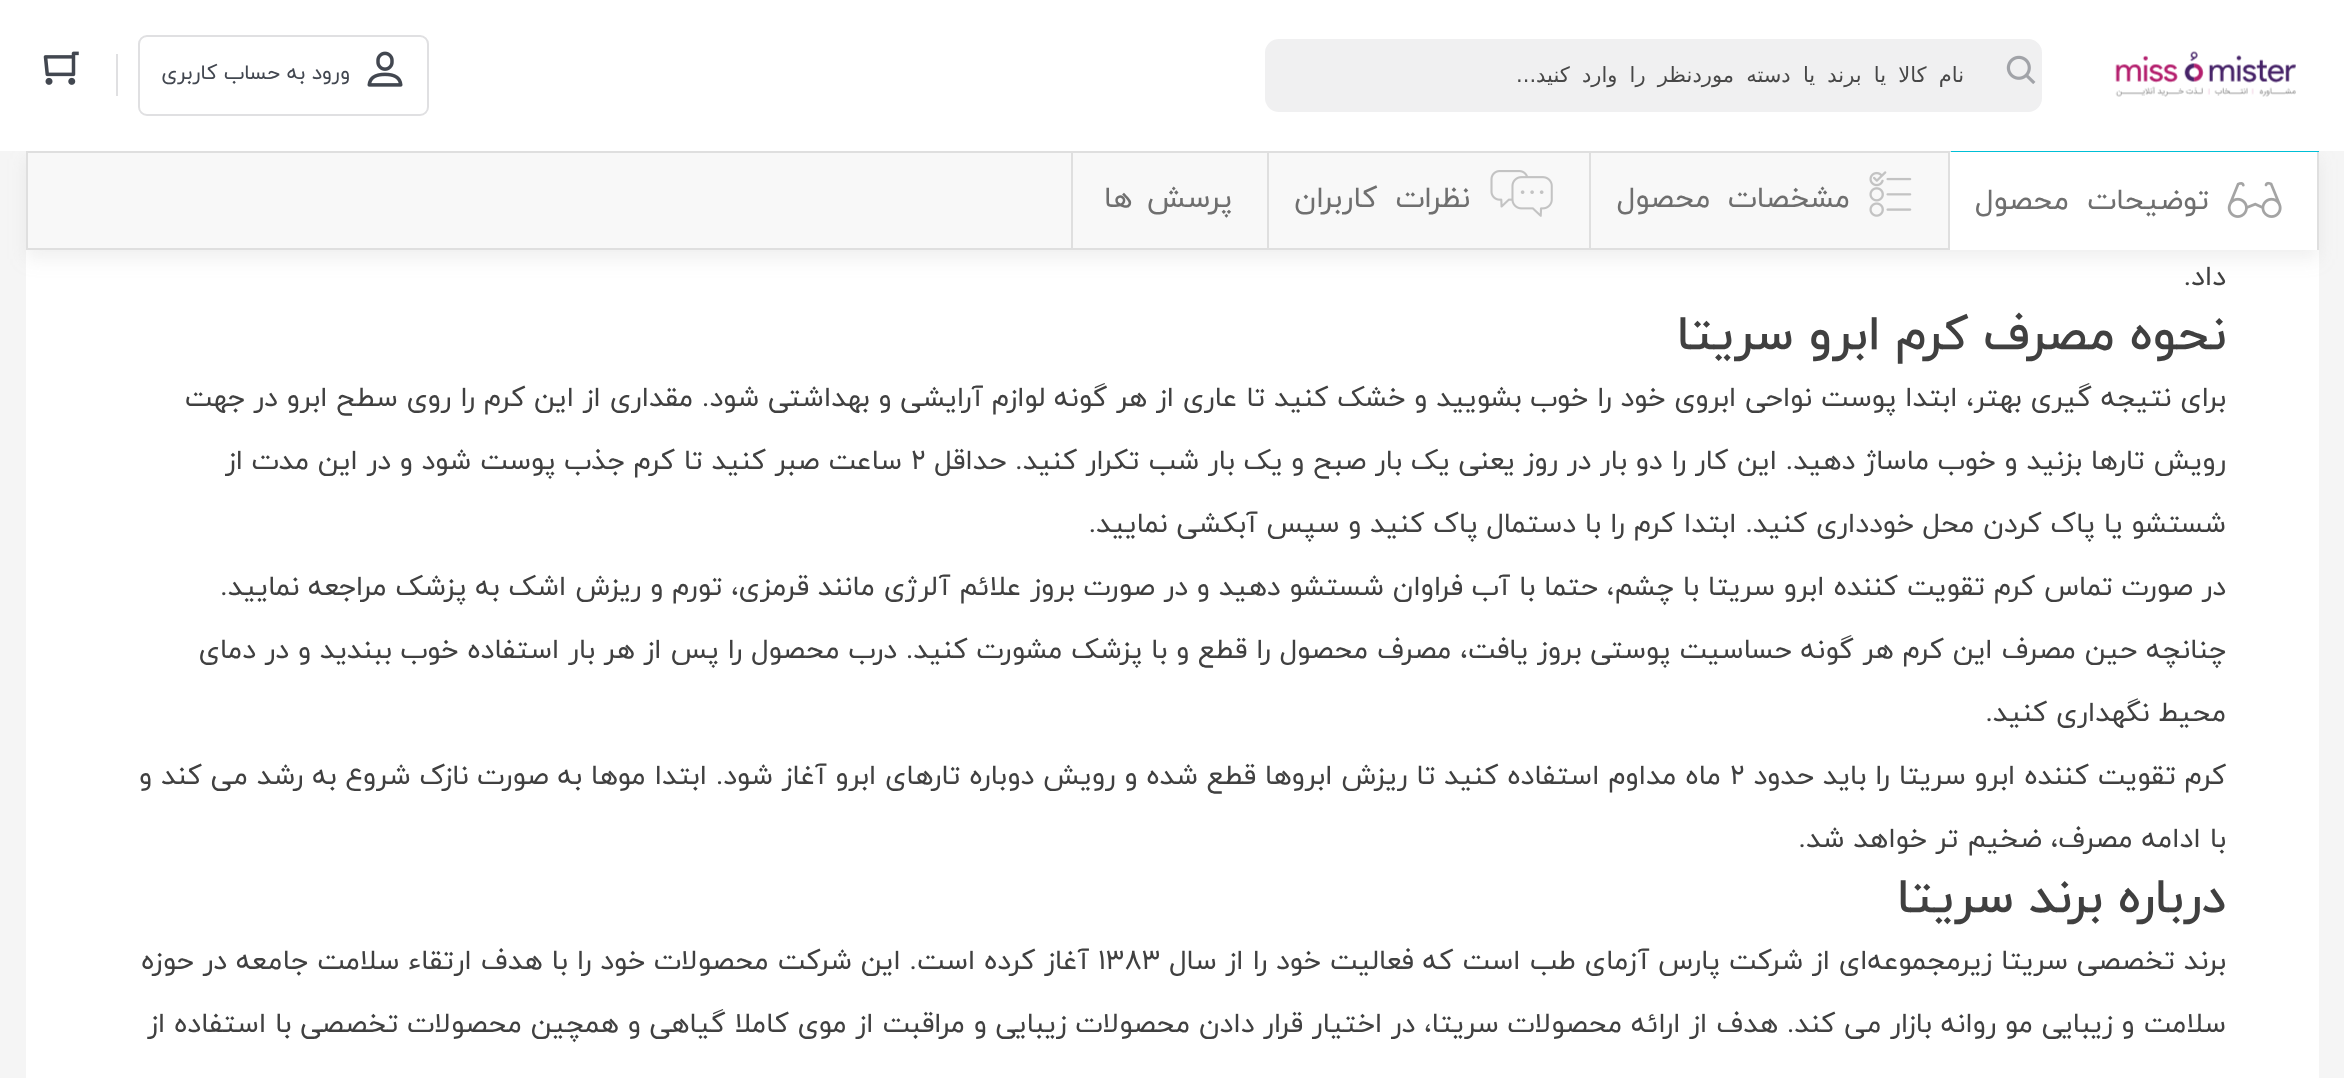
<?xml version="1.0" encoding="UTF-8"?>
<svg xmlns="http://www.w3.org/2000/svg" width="2344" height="1078">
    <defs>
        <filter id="blur1" x="-50%" y="-200%" width="200%" height="500%"><feGaussianBlur stdDeviation="9"/></filter>
    </defs>
    <rect width="100%" height="100%" fill="#F5F5F5"/>
    <rect x="26" y="250" width="2293" height="828" fill="#FFFFFF"/>
    <rect x="26" y="159" width="2293" height="100" fill="#B5B5B5" fill-opacity="0.2" filter="url(#blur1)"/>
    <rect x="0" y="0" width="2344" height="151" fill="#FFFFFF"/>
    <image x="2115" y="51" width="181" height="46" href="img_01.png"/>
    <rect x="1265" y="39" width="777" height="73" rx="14" fill="#F0F0F1"/>
    <image x="2006" y="55" width="30" height="29" href="img_02.png"/>
    <text x="1964" y="82" word-spacing="5.5" font-family="DejaVu Sans" font-size="21" letter-spacing="-1.4" direction="rtl" fill="#474747">نام کالا یا برند یا دسته موردنظر را وارد کنید...</text>
    <rect x="139" y="36" width="289" height="79" rx="8" fill="none" stroke="#E0E0E2" stroke-width="2"/>
    <image x="367" y="51" width="36" height="36" href="img_03.png"/>
    <text x="350" y="79" font-family="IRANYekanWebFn" font-size="21" direction="rtl" fill="#424750">ورود به حساب کاربری</text>
    <rect x="116" y="54" width="2" height="42" fill="#E0E0E2"/>
    <image x="43" y="51" width="36" height="34" href="img_04.png"/>
    <rect x="28" y="153" width="1920" height="95" fill="#F8F8F8"/>
    <rect x="27" y="152" width="2291" height="97" fill="none" stroke="#DFDFDF" stroke-width="2"/>
    <rect x="1948" y="152" width="2" height="97" fill="#DFDFDF"/>
    <rect x="1951" y="151" width="368" height="1" fill="#00BFD6"/>
    <rect x="1950" y="152" width="367" height="98" fill="#FFFFFF"/>
    <image x="2227" y="181" width="55" height="37" href="img_05.png"/>
    <text x="2209" y="209" word-spacing="9" font-family="IRANYekanWebFn" font-size="29.75" letter-spacing="-0.75" direction="rtl" fill="#6F6F6F">توضیحات محصول</text>
    <rect x="1589" y="152" width="2" height="97" fill="#DFDFDF"/>
    <image x="1869" y="171" width="43" height="46" href="img_06.png"/>
    <text x="1850" y="207" word-spacing="8" font-family="IRANYekanWebFn" font-size="29.75" letter-spacing="-0.75" direction="rtl" fill="#6F6F6F">مشخصات محصول</text>
    <rect x="1267" y="152" width="2" height="97" fill="#DFDFDF"/>
    <image x="1490" y="170" width="63" height="47" href="img_07.png"/>
    <text x="1470" y="207" word-spacing="9" font-family="IRANYekanWebFn" font-size="29.75" letter-spacing="-0.75" direction="rtl" fill="#6F6F6F">نظرات کاربران</text>
    <rect x="1071" y="152" width="2" height="97" fill="#DFDFDF"/>
    <text x="1232" y="207" word-spacing="5" font-family="IRANYekanWebFn" font-size="29.75" letter-spacing="-0.75" direction="rtl" fill="#6F6F6F">پرسش ها</text>
    <text x="2226" y="285" font-family="IRANYekanWebFn" font-size="28" direction="rtl" fill="#404040">داد.</text>
    <text x="2226" y="349" font-family="IRANYekanWebFn" font-size="49" font-weight="500" direction="rtl" fill="#404040">نحوه مصرف کرم ابرو سریتا</text>
    <text x="2226" y="406" font-family="IRANYekanWebFn" font-size="28" direction="rtl" fill="#404040">برای نتیجه گیری بهتر، ابتدا پوست نواحی ابروی خود را خوب بشویید و خشک کنید تا عاری از هر گونه لوازم آرایشی و بهداشتی شود. مقداری از این کرم را روی سطح ابرو در جهت</text>
    <text x="2226" y="469" font-family="IRANYekanWebFn" font-size="28" direction="rtl" fill="#404040">رویش تارها بزنید و خوب ماساژ دهید. این کار را دو بار در روز یعنی یک بار صبح و یک بار شب تکرار کنید. حداقل</text>
    <text x="911" y="469" font-family="IRANYekanWebFn" font-size="28" fill="#404040">۲</text>
    <text x="902" y="469" font-family="IRANYekanWebFn" font-size="28" direction="rtl" fill="#404040">ساعت صبر کنید تا کرم جذب پوست شود و در این مدت از</text>
    <text x="2226" y="532" font-family="IRANYekanWebFn" font-size="28" direction="rtl" fill="#404040">شستشو یا پاک کردن محل خودداری کنید. ابتدا کرم را با دستمال پاک کنید و سپس آبکشی نمایید.</text>
    <text x="2226" y="595" font-family="IRANYekanWebFn" font-size="28" direction="rtl" fill="#404040">در صورت تماس کرم تقویت کننده ابرو سریتا با چشم، حتما با آب فراوان شستشو دهید و در صورت بروز علائم آلرژی مانند قرمزی، تورم و ریزش اشک به پزشک مراجعه نمایید.</text>
    <text x="2226" y="658" font-family="IRANYekanWebFn" font-size="28" direction="rtl" fill="#404040">چنانچه حین مصرف این کرم هر گونه حساسیت پوستی بروز یافت، مصرف محصول را قطع و با پزشک مشورت کنید. درب محصول را پس از هر بار استفاده خوب ببندید و در دمای</text>
    <text x="2226" y="721" font-family="IRANYekanWebFn" font-size="28" direction="rtl" fill="#404040">محیط نگهداری کنید.</text>
    <text x="2226" y="784" font-family="IRANYekanWebFn" font-size="28" direction="rtl" fill="#404040">کرم تقویت کننده ابرو سریتا را باید حدود</text>
    <text x="1730" y="784" font-family="IRANYekanWebFn" font-size="28" fill="#404040">۲</text>
    <text x="1721" y="784" font-family="IRANYekanWebFn" font-size="28" direction="rtl" fill="#404040">ماه مداوم استفاده کنید تا ریزش ابروها قطع شده و رویش دوباره تارهای ابرو آغاز شود. ابتدا موها به صورت نازک شروع به رشد می کند و</text>
    <text x="2226" y="847" font-family="IRANYekanWebFn" font-size="28" direction="rtl" fill="#404040">با ادامه مصرف، ضخیم تر خواهد شد.</text>
    <text x="2226" y="912" font-family="IRANYekanWebFn" font-size="49" font-weight="500" direction="rtl" fill="#404040">درباره برند سریتا</text>
    <text x="2226" y="969" font-family="IRANYekanWebFn" font-size="28" direction="rtl" fill="#404040">برند تخصصی سریتا زیرمجموعه‌ای از شرکت پارس آزمای طب است که فعالیت خود را از سال</text>
    <text x="1098" y="969" font-family="IRANYekanWebFn" font-size="28" fill="#404040">۱۳۸۳</text>
    <text x="1089" y="969" font-family="IRANYekanWebFn" font-size="28" direction="rtl" fill="#404040">آغاز کرده است. این شرکت محصولات خود را با هدف ارتقاء سلامت جامعه در حوزه</text>
    <text x="2226" y="1032" font-family="IRANYekanWebFn" font-size="28" direction="rtl" fill="#404040">سلامت و زیبایی مو روانه بازار می کند. هدف از ارائه محصولات سریتا، در اختیار قرار دادن محصولات زیبایی و مراقبت از موی کاملا گیاهی و همچین محصولات تخصصی با استفاده از</text>
</svg>
